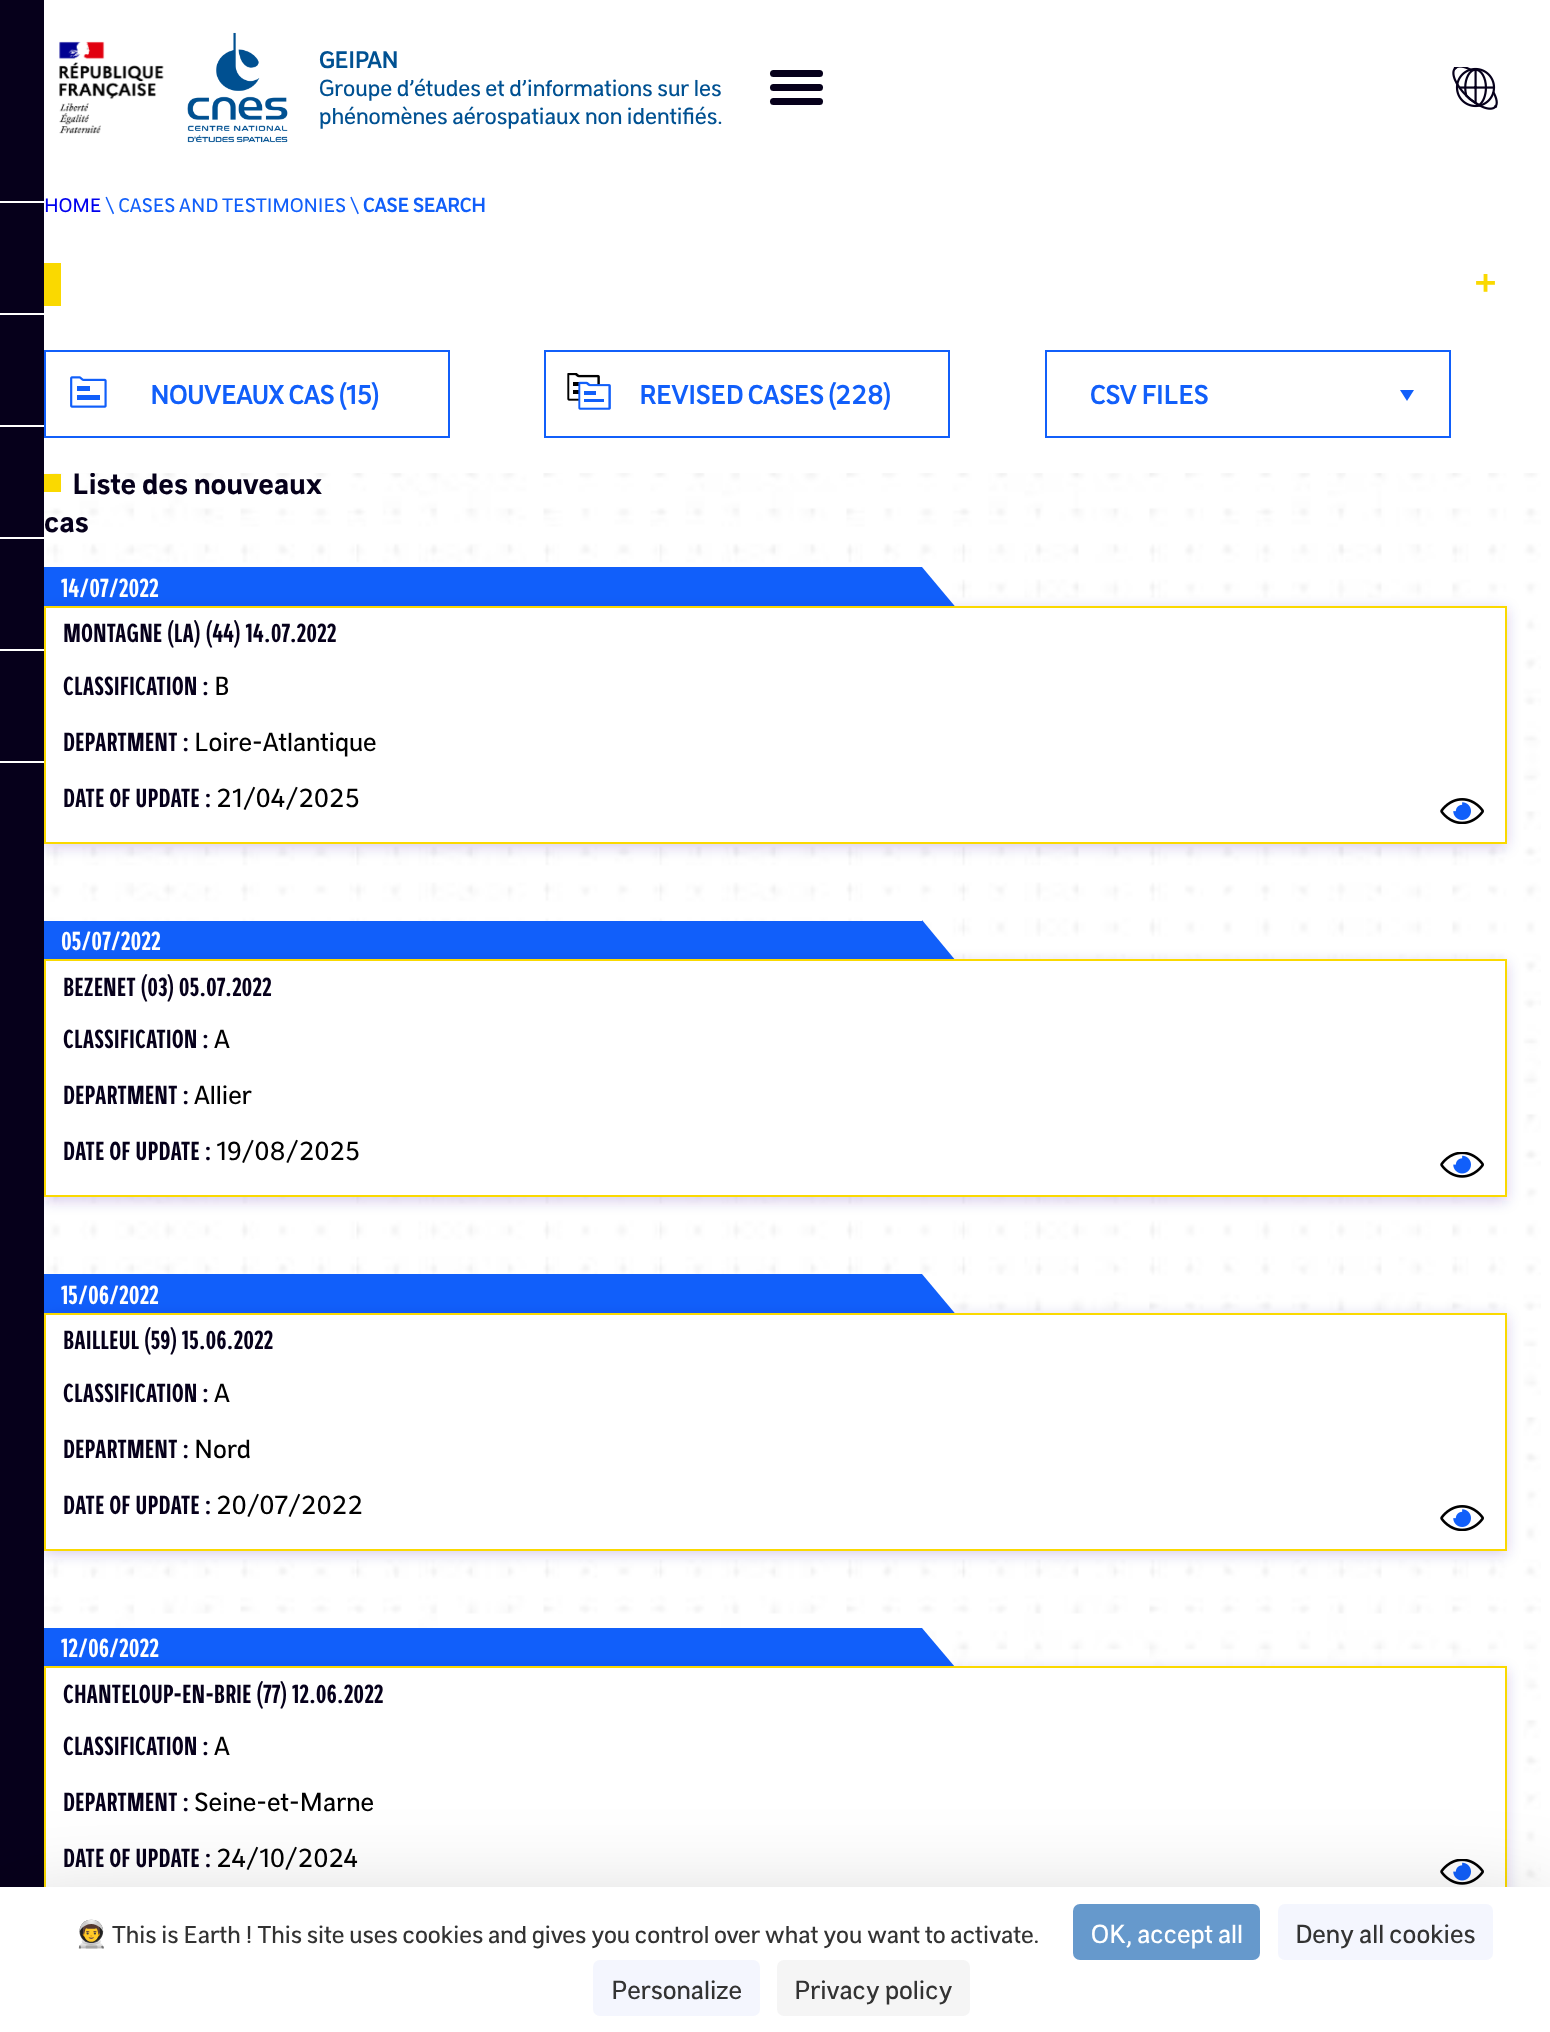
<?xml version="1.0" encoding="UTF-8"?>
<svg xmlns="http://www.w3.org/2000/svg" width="1550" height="2032">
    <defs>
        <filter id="blur1" x="-50%" y="-200%" width="200%" height="500%"><feGaussianBlur stdDeviation="7"/></filter>
        <filter id="blur2" x="-50%" y="-200%" width="200%" height="500%"><feGaussianBlur stdDeviation="52.5"/></filter>
    </defs>
    <rect width="100%" height="100%" fill="#FFFFFF"/>
    <image x="44" y="473" width="1497" height="1414" href="img_04.png"/>
    <rect x="44" y="567" width="878" height="39" fill="#115FFA"/>
    <path d="M 1010 672 H 922 V 567 Z" fill="#115FFA"/>
    <rect x="44" y="609" width="1463" height="238" fill="#32009B" fill-opacity="0.2" filter="url(#blur1)"/>
    <rect x="44" y="921" width="878" height="38" fill="#115FFA"/>
    <path d="M 1010 1026 H 922 V 920 Z" fill="#115FFA"/>
    <rect x="44" y="963" width="1463" height="238" fill="#32009B" fill-opacity="0.2" filter="url(#blur1)"/>
    <rect x="44" y="1274" width="878" height="39" fill="#115FFA"/>
    <path d="M 1010 1379 H 922 V 1274 Z" fill="#115FFA"/>
    <rect x="44" y="1316" width="1463" height="238" fill="#32009B" fill-opacity="0.2" filter="url(#blur1)"/>
    <rect x="44" y="1628" width="878" height="38" fill="#115FFA"/>
    <path d="M 1010 1732 H 922 V 1628 Z" fill="#115FFA"/>
    <rect x="44" y="1670" width="1463" height="238" fill="#32009B" fill-opacity="0.2" filter="url(#blur1)"/>
    <rect x="0" y="0" width="44" height="1887" fill="#06001B"/>
    <rect x="0" y="201" width="44" height="2" fill="#FFFFFF"/>
    <rect x="0" y="313" width="44" height="2" fill="#FFFFFF"/>
    <rect x="0" y="425" width="44" height="2" fill="#FFFFFF"/>
    <rect x="0" y="537" width="44" height="2" fill="#FFFFFF"/>
    <rect x="0" y="649" width="44" height="2" fill="#FFFFFF"/>
    <rect x="0" y="761" width="44" height="2" fill="#FFFFFF"/>
    <image x="1452" y="67" width="46" height="43" href="img_01.png"/>
    <image x="59" y="41" width="105" height="93" href="img_02.png"/>
    <image x="187" y="32" width="101" height="111" href="img_03.png"/>
    <text x="319" y="68" font-family="'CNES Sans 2'" font-size="24.75" font-weight="700" fill="#005192">GEIPAN</text>
    <text font-family="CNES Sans" font-size="24.75" fill="#005192">
        <tspan x="319" y="96">Groupe d’études et d’informations sur les</tspan>
        <tspan x="319" y="124">phénomènes aérospatiaux non identifiés.</tspan>
    </text>
    <rect x="770" y="70" width="53" height="7" rx="3.5" fill="#06001B"/>
    <rect x="770" y="84" width="53" height="7" rx="3.5" fill="#06001B"/>
    <rect x="770" y="98" width="53" height="7" rx="3.5" fill="#06001B"/>
    <text x="44" y="212" font-family="CNES Sans" font-size="21" fill="#0000EE">HOME</text>
    <text x="105" y="212" font-family="CNES Sans" font-size="21" fill="#115FFA">\ CASES AND TESTIMONIES \</text>
    <text x="363" y="212" font-family="'CNES Sans 2'" font-size="21" font-weight="700" fill="#115FFA">CASE SEARCH</text>
    <rect x="44" y="263" width="17" height="43" fill="#FAD900"/>
    <text x="1473" y="296" font-family="'CNES Sans 2'" font-size="38" font-weight="700" fill="#FAD900">+</text>
    <text x="72" y="494" font-family="CNES Sans" font-size="31.5" font-weight="700" fill="#06001B">Liste des nouveaux</text>
    <rect x="91" y="472" width="3" height="1" fill="#FFFFFF"/>
    <rect x="45" y="351" width="404" height="86" fill="none" stroke="#115FFA" stroke-width="2"/>
    <image x="70" y="376" width="37" height="32" href="img_05.png"/>
    <text x="150" y="404" font-family="'CNES Sans 2'" font-size="28" font-weight="700" fill="#115FFA">NOUVEAUX CAS (15)</text>
    <rect x="545" y="351" width="404" height="86" fill="none" stroke="#115FFA" stroke-width="2"/>
    <image x="567" y="373" width="44" height="37" href="img_06.png"/>
    <text x="639" y="404" font-family="'CNES Sans 2'" font-size="28" font-weight="700" fill="#115FFA">REVISED CASES (228)</text>
    <path d="M 1407 401 L 1400 390 H 1414 Z" fill="#115FFA"/>
    <rect x="1046" y="351" width="404" height="86" fill="none" stroke="#115FFA" stroke-width="2"/>
    <text x="1090" y="404" font-family="'CNES Sans 2'" font-size="28" font-weight="700" fill="#115FFA">CSV FILES</text>
    <rect x="44" y="474" width="17" height="18" fill="#FAD900"/>
    <text x="44" y="532" font-family="CNES Sans" font-size="31.5" font-weight="700" fill="#06001B">cas</text>
    <text x="61" y="597" font-family="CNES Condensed" font-size="28" font-weight="700" fill="#FFFFFF">14/07/2022</text>
    <rect x="45" y="607" width="1461" height="236" fill="#FFFFFF" stroke="#FAD900" stroke-width="2"/>
    <text font-family="CNES Condensed" font-size="28" font-weight="700" fill="#06001B">
        <tspan x="63" y="642">MONTAGNE (LA) (44) 14.07.2022</tspan>
        <tspan x="63" y="695">CLASSIFICATION :</tspan>
    </text>
    <text x="214" y="695" font-family="CNES Sans" font-size="28" fill="#000000">B</text>
    <text x="63" y="751" font-family="CNES Condensed" font-size="28" font-weight="700" fill="#06001B">DEPARTMENT :</text>
    <text x="194" y="751" font-family="CNES Sans" font-size="28" fill="#000000">Loire-Atlantique</text>
    <text x="63" y="807" font-family="CNES Condensed" font-size="28" font-weight="700" fill="#06001B">DATE OF UPDATE :</text>
    <text x="216" y="807" font-family="CNES Sans" font-size="28" fill="#000000">21/04/2025</text>
    <image x="1440" y="798" width="44" height="26" href="img_07.png"/>
    <text x="61" y="950" font-family="CNES Condensed" font-size="28" font-weight="700" fill="#FFFFFF">05/07/2022</text>
    <rect x="45" y="960" width="1461" height="236" fill="#FFFFFF" stroke="#FAD900" stroke-width="2"/>
    <text font-family="CNES Condensed" font-size="28" font-weight="700" fill="#06001B">
        <tspan x="63" y="996">BEZENET (03) 05.07.2022</tspan>
        <tspan x="63" y="1048">CLASSIFICATION :</tspan>
    </text>
    <text x="214" y="1048" font-family="CNES Sans" font-size="28" fill="#000000">A</text>
    <text x="63" y="1104" font-family="CNES Condensed" font-size="28" font-weight="700" fill="#06001B">DEPARTMENT :</text>
    <text x="194" y="1104" font-family="CNES Sans" font-size="28" fill="#000000">Allier</text>
    <text x="63" y="1160" font-family="CNES Condensed" font-size="28" font-weight="700" fill="#06001B">DATE OF UPDATE :</text>
    <text x="216" y="1160" font-family="CNES Sans" font-size="28" fill="#000000">19/08/2025</text>
    <image x="1440" y="1152" width="44" height="26" href="img_08.png"/>
    <text x="61" y="1304" font-family="CNES Condensed" font-size="28" font-weight="700" fill="#FFFFFF">15/06/2022</text>
    <rect x="45" y="1314" width="1461" height="236" fill="#FFFFFF" stroke="#FAD900" stroke-width="2"/>
    <text font-family="CNES Condensed" font-size="28" font-weight="700" fill="#06001B">
        <tspan x="63" y="1349">BAILLEUL (59) 15.06.2022</tspan>
        <tspan x="63" y="1402">CLASSIFICATION :</tspan>
    </text>
    <text x="214" y="1402" font-family="CNES Sans" font-size="28" fill="#000000">A</text>
    <text x="63" y="1458" font-family="CNES Condensed" font-size="28" font-weight="700" fill="#06001B">DEPARTMENT :</text>
    <text x="194" y="1458" font-family="CNES Sans" font-size="28" fill="#000000">Nord</text>
    <text x="63" y="1514" font-family="CNES Condensed" font-size="28" font-weight="700" fill="#06001B">DATE OF UPDATE :</text>
    <text x="216" y="1514" font-family="CNES Sans" font-size="28" fill="#000000">20/07/2022</text>
    <image x="1440" y="1505" width="44" height="26" href="img_07.png"/>
    <text x="61" y="1657" font-family="CNES Condensed" font-size="28" font-weight="700" fill="#FFFFFF">12/06/2022</text>
    <rect x="46" y="1668" width="1459" height="219" fill="#FFFFFF"/>
    <rect x="45" y="1667" width="1461" height="236" fill="none" stroke="#FAD900" stroke-width="2"/>
    <text font-family="CNES Condensed" font-size="28" font-weight="700" fill="#06001B">
        <tspan x="63" y="1703">CHANTELOUP-EN-BRIE (77) 12.06.2022</tspan>
        <tspan x="63" y="1755">CLASSIFICATION :</tspan>
    </text>
    <text x="214" y="1755" font-family="CNES Sans" font-size="28" fill="#000000">A</text>
    <text x="63" y="1811" font-family="CNES Condensed" font-size="28" font-weight="700" fill="#06001B">DEPARTMENT :</text>
    <text x="194" y="1811" font-family="CNES Sans" font-size="28" fill="#000000">Seine-et-Marne</text>
    <text x="63" y="1867" font-family="CNES Condensed" font-size="28" font-weight="700" fill="#06001B">DATE OF UPDATE :</text>
    <text x="216" y="1867" font-family="CNES Sans" font-size="28" fill="#000000">24/10/2024</text>
    <image x="1440" y="1859" width="44" height="26" href="img_08.png"/>
    <rect x="0" y="1922" width="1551" height="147" fill="#000000" fill-opacity="0.25" filter="url(#blur2)"/>
    <rect x="0" y="1887" width="1550" height="145" fill="#FFFFFF"/>
    <text x="75" y="1943" font-family="Noto Color Emoji" font-size="26.25" fill="#333333">👨‍🚀</text>
    <text x="112" y="1943" font-family="CNES Sans" font-size="26.25" fill="#333333">This is Earth ! This site uses cookies and gives you control over what you want to activate.</text>
    <rect x="1073" y="1904" width="187" height="56" rx="7" fill="#6699CC"/>
    <text x="1091" y="1943" font-family="CNES Sans" font-size="28" fill="#FFFFFF">OK, accept all</text>
    <rect x="1278" y="1904" width="215" height="56" rx="7" fill="#F4F6FE"/>
    <text x="1295" y="1943" font-family="CNES Sans" font-size="28" fill="#333333">Deny all cookies</text>
    <rect x="593" y="1960" width="167" height="56" rx="7" fill="#F4F6FE"/>
    <text x="611" y="1999" font-family="CNES Sans" font-size="28" fill="#333333">Personalize</text>
    <rect x="777" y="1960" width="193" height="56" rx="7" fill="#F5F5F5"/>
    <text x="794" y="1999" font-family="CNES Sans" font-size="28" fill="#333333">Privacy policy</text>
</svg>
